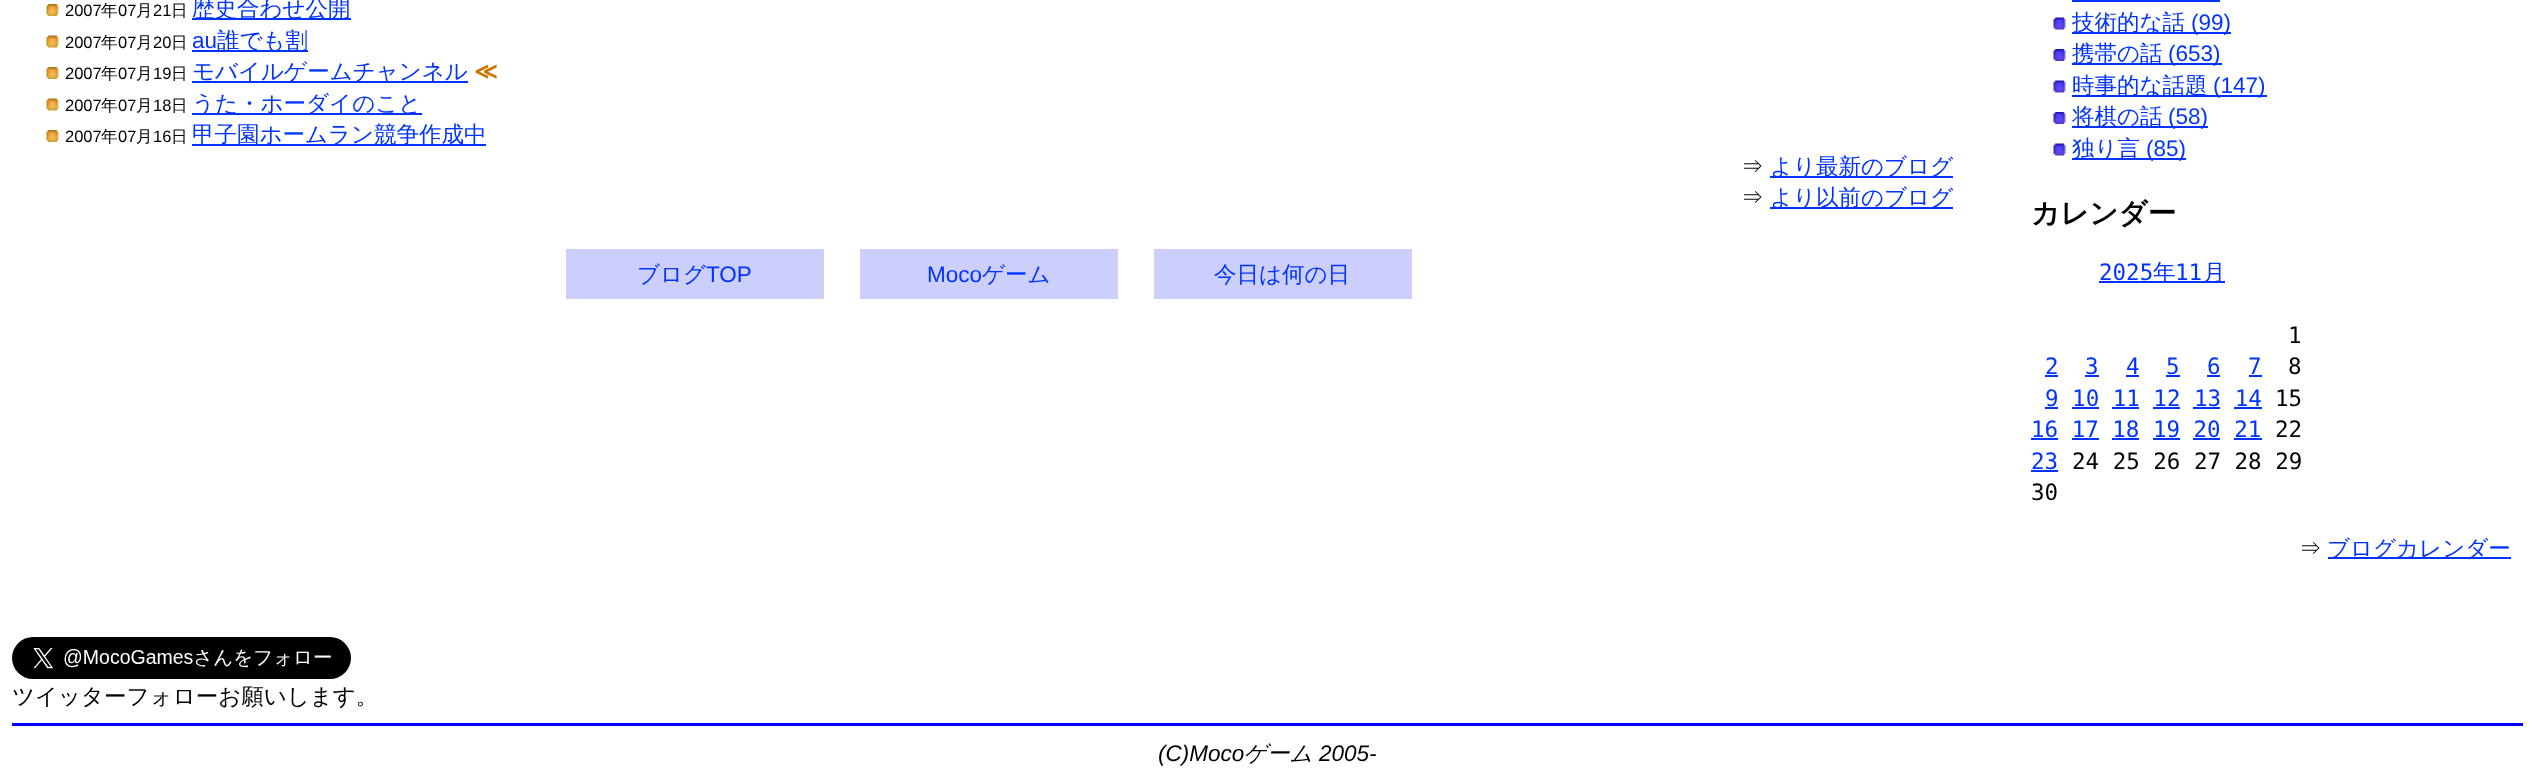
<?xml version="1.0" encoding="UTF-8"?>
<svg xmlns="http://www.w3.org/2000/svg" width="2535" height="780">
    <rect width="100%" height="100%" fill="#FFFFFF"/>
    <image x="46" y="4" width="13" height="12" href="img_01.png"/>
    <text x="65" y="16" font-family="Liberation Sans" font-size="16.5" fill="#000000">2007</text>
    <text x="101" y="16" font-family="WenQuanYi Zen Hei" font-size="16.5" font-weight="500" fill="#000000">年</text>
    <text x="118" y="16" font-family="Liberation Sans" font-size="16.5" fill="#000000">07</text>
    <text x="136" y="16" font-family="WenQuanYi Zen Hei" font-size="16.5" font-weight="500" fill="#000000">月</text>
    <text x="153" y="16" font-family="Liberation Sans" font-size="16.5" fill="#000000">21</text>
    <text x="171" y="16" font-family="WenQuanYi Zen Hei" font-size="16.5" font-weight="500" fill="#000000">日</text>
    <rect x="192" y="18" width="159" height="2" fill="#0033FF"/>
    <text x="192" y="16" font-family="WenQuanYi Zen Hei" font-size="22.5" font-weight="500" fill="#0033FF">歴史合わせ公開</text>
    <image x="46" y="35" width="13" height="13" href="img_02.png"/>
    <text x="65" y="48" font-family="Liberation Sans" font-size="16.5" fill="#000000">2007</text>
    <text x="101" y="48" font-family="WenQuanYi Zen Hei" font-size="16.5" font-weight="500" fill="#000000">年</text>
    <text x="118" y="48" font-family="Liberation Sans" font-size="16.5" fill="#000000">07</text>
    <text x="136" y="48" font-family="WenQuanYi Zen Hei" font-size="16.5" font-weight="500" fill="#000000">月</text>
    <text x="153" y="48" font-family="Liberation Sans" font-size="16.5" fill="#000000">20</text>
    <text x="171" y="48" font-family="WenQuanYi Zen Hei" font-size="16.5" font-weight="500" fill="#000000">日</text>
    <text x="192" y="48" font-family="Liberation Sans" font-size="22.5" fill="#0033FF">au</text>
    <rect x="192" y="50" width="116" height="2" fill="#0033FF"/>
    <text x="217" y="48" font-family="WenQuanYi Zen Hei" font-size="22.5" font-weight="500" fill="#0033FF">誰でも割</text>
    <image x="46" y="67" width="13" height="12" href="img_01.png"/>
    <text x="65" y="79" font-family="Liberation Sans" font-size="16.5" fill="#000000">2007</text>
    <text x="101" y="79" font-family="WenQuanYi Zen Hei" font-size="16.5" font-weight="500" fill="#000000">年</text>
    <text x="118" y="79" font-family="Liberation Sans" font-size="16.5" fill="#000000">07</text>
    <text x="136" y="79" font-family="WenQuanYi Zen Hei" font-size="16.5" font-weight="500" fill="#000000">月</text>
    <text x="153" y="79" font-family="Liberation Sans" font-size="16.5" fill="#000000">19</text>
    <text x="171" y="79" font-family="WenQuanYi Zen Hei" font-size="16.5" font-weight="500" fill="#000000">日</text>
    <rect x="192" y="81" width="276" height="2" fill="#0033FF"/>
    <text x="192" y="79" font-family="WenQuanYi Zen Hei" font-size="22.5" font-weight="500" fill="#0033FF">モバイルゲームチャンネル</text>
    <text x="474" y="79" font-family="DejaVu Sans" font-size="22.5" font-weight="700" fill="#CC7700">≪</text>
    <image x="46" y="98" width="13" height="13" href="img_02.png"/>
    <text x="65" y="111" font-family="Liberation Sans" font-size="16.5" fill="#000000">2007</text>
    <text x="101" y="111" font-family="WenQuanYi Zen Hei" font-size="16.5" font-weight="500" fill="#000000">年</text>
    <text x="118" y="111" font-family="Liberation Sans" font-size="16.5" fill="#000000">07</text>
    <text x="136" y="111" font-family="WenQuanYi Zen Hei" font-size="16.5" font-weight="500" fill="#000000">月</text>
    <text x="153" y="111" font-family="Liberation Sans" font-size="16.5" fill="#000000">18</text>
    <text x="171" y="111" font-family="WenQuanYi Zen Hei" font-size="16.5" font-weight="500" fill="#000000">日</text>
    <rect x="192" y="113" width="230" height="2" fill="#0033FF"/>
    <text x="192" y="111" font-family="WenQuanYi Zen Hei" font-size="22.5" font-weight="500" fill="#0033FF">うた・ホーダイのこと</text>
    <image x="46" y="130" width="13" height="12" href="img_01.png"/>
    <text x="65" y="142" font-family="Liberation Sans" font-size="16.5" fill="#000000">2007</text>
    <text x="101" y="142" font-family="WenQuanYi Zen Hei" font-size="16.5" font-weight="500" fill="#000000">年</text>
    <text x="118" y="142" font-family="Liberation Sans" font-size="16.5" fill="#000000">07</text>
    <text x="136" y="142" font-family="WenQuanYi Zen Hei" font-size="16.5" font-weight="500" fill="#000000">月</text>
    <text x="153" y="142" font-family="Liberation Sans" font-size="16.5" fill="#000000">16</text>
    <text x="171" y="142" font-family="WenQuanYi Zen Hei" font-size="16.5" font-weight="500" fill="#000000">日</text>
    <rect x="192" y="144" width="294" height="2" fill="#0033FF"/>
    <text x="192" y="142" font-family="WenQuanYi Zen Hei" font-size="22.5" font-weight="500" fill="#0033FF">甲子園ホームラン競争作成中</text>
    <text x="1741" y="174" font-family="WenQuanYi Zen Hei" font-size="22.5" font-weight="500" fill="#000000">⇒</text>
    <rect x="1770" y="176" width="183" height="2" fill="#0033FF"/>
    <text x="1770" y="174" font-family="WenQuanYi Zen Hei" font-size="22.5" font-weight="500" fill="#0033FF">より最新のブログ</text>
    <text x="1741" y="205" font-family="WenQuanYi Zen Hei" font-size="22.5" font-weight="500" fill="#000000">⇒</text>
    <rect x="1770" y="207" width="183" height="2" fill="#0033FF"/>
    <text x="1770" y="205" font-family="WenQuanYi Zen Hei" font-size="22.5" font-weight="500" fill="#0033FF">より以前のブログ</text>
    <rect x="566" y="249" width="258" height="50" fill="#CCCFFC"/>
    <text x="637" y="282" font-family="WenQuanYi Zen Hei" font-size="22.5" font-weight="500" fill="#0033FF">ブログ</text>
    <text x="706" y="282" font-family="Liberation Sans" font-size="22.5" fill="#0033FF">TOP</text>
    <rect x="860" y="249" width="258" height="50" fill="#CCCFFC"/>
    <text x="927" y="282" font-family="Liberation Sans" font-size="22.5" fill="#0033FF">Moco</text>
    <text x="982" y="282" font-family="WenQuanYi Zen Hei" font-size="22.5" font-weight="500" fill="#0033FF">ゲーム</text>
    <rect x="1154" y="249" width="258" height="50" fill="#CCCFFC"/>
    <text x="1214" y="282" font-family="WenQuanYi Zen Hei" font-size="22.5" font-weight="500" fill="#0033FF">今日は何の日</text>
    <rect x="2072" y="0" width="148" height="2" fill="#0033FF"/>
    <image x="2053" y="17" width="13" height="13" href="img_03.png"/>
    <rect x="2072" y="32" width="159" height="2" fill="#0033FF"/>
    <text x="2072" y="30" font-family="WenQuanYi Zen Hei" font-size="22.5" font-weight="500" fill="#0033FF">技術的な話</text>
    <text x="2191" y="30" font-family="Liberation Sans" font-size="22.5" fill="#0033FF">(99)</text>
    <image x="2053" y="49" width="13" height="12" href="img_04.png"/>
    <rect x="2072" y="63" width="150" height="2" fill="#0033FF"/>
    <text x="2072" y="61" font-family="WenQuanYi Zen Hei" font-size="22.5" font-weight="500" fill="#0033FF">携帯の話</text>
    <text x="2168" y="61" font-family="Liberation Sans" font-size="22.5" fill="#0033FF">(653)</text>
    <image x="2053" y="80" width="13" height="13" href="img_03.png"/>
    <rect x="2072" y="95" width="195" height="2" fill="#0033FF"/>
    <text x="2072" y="93" font-family="WenQuanYi Zen Hei" font-size="22.5" font-weight="500" fill="#0033FF">時事的な話題</text>
    <text x="2213" y="93" font-family="Liberation Sans" font-size="22.5" fill="#0033FF">(147)</text>
    <image x="2053" y="112" width="13" height="12" href="img_04.png"/>
    <rect x="2072" y="126" width="136" height="2" fill="#0033FF"/>
    <text x="2072" y="124" font-family="WenQuanYi Zen Hei" font-size="22.5" font-weight="500" fill="#0033FF">将棋の話</text>
    <text x="2168" y="124" font-family="Liberation Sans" font-size="22.5" fill="#0033FF">(58)</text>
    <image x="2053" y="143" width="13" height="13" href="img_03.png"/>
    <rect x="2072" y="158" width="114" height="2" fill="#0033FF"/>
    <text x="2072" y="156" font-family="WenQuanYi Zen Hei" font-size="22.5" font-weight="500" fill="#0033FF">独り言</text>
    <text x="2146" y="156" font-family="Liberation Sans" font-size="22.5" fill="#0033FF">(85)</text>
    <text x="2031" y="223" font-family="WenQuanYi Zen Hei" font-size="28.5" font-weight="700" fill="#000000">カレンダー</text>
    <text x="2099" y="280" font-family="DejaVu Sans Mono" font-size="22.5" fill="#0033FF">2025</text>
    <rect x="2099" y="281" width="126" height="2" fill="#0033FF"/>
    <text x="2153" y="280" font-family="WenQuanYi Zen Hei" font-size="22.5" font-weight="500" fill="#0033FF">年</text>
    <text x="2175" y="280" font-family="DejaVu Sans Mono" font-size="22.5" fill="#0033FF">11</text>
    <text x="2203" y="280" font-family="WenQuanYi Zen Hei" font-size="22.5" font-weight="500" fill="#0033FF">月</text>
    <text x="2288" y="343" font-family="DejaVu Sans Mono" font-size="22.5" fill="#000000">1</text>
    <text x="2045" y="374" font-family="DejaVu Sans Mono" font-size="22.5" fill="#0033FF">2</text>
    <rect x="2045" y="375" width="13" height="2" fill="#0033FF"/>
    <text x="2085" y="374" font-family="DejaVu Sans Mono" font-size="22.5" fill="#0033FF">3</text>
    <rect x="2085" y="375" width="14" height="2" fill="#0033FF"/>
    <text x="2126" y="374" font-family="DejaVu Sans Mono" font-size="22.5" fill="#0033FF">4</text>
    <rect x="2126" y="375" width="13" height="2" fill="#0033FF"/>
    <text x="2166" y="374" font-family="DejaVu Sans Mono" font-size="22.5" fill="#0033FF">5</text>
    <rect x="2166" y="375" width="14" height="2" fill="#0033FF"/>
    <text x="2207" y="374" font-family="DejaVu Sans Mono" font-size="22.5" fill="#0033FF">6</text>
    <rect x="2207" y="375" width="13" height="2" fill="#0033FF"/>
    <text x="2248" y="374" font-family="DejaVu Sans Mono" font-size="22.5" fill="#0033FF">7</text>
    <rect x="2249" y="375" width="13" height="2" fill="#0033FF"/>
    <text x="2288" y="374" font-family="DejaVu Sans Mono" font-size="22.5" fill="#000000">8</text>
    <text x="2045" y="406" font-family="DejaVu Sans Mono" font-size="22.5" fill="#0033FF">9 10 11 12 13 14</text>
    <rect x="2045" y="407" width="13" height="2" fill="#0033FF"/>
    <text x="2275" y="406" font-family="DejaVu Sans Mono" font-size="22.5" fill="#000000">15</text>
    <rect x="2072" y="407" width="27" height="2" fill="#0033FF"/>
    <rect x="2112" y="407" width="27" height="2" fill="#0033FF"/>
    <rect x="2153" y="407" width="27" height="2" fill="#0033FF"/>
    <rect x="2193" y="407" width="27" height="2" fill="#0033FF"/>
    <rect x="2234" y="407" width="28" height="2" fill="#0033FF"/>
    <text x="2031" y="437" font-family="DejaVu Sans Mono" font-size="22.5" fill="#0033FF">16 17 18 19 20 21</text>
    <rect x="2031" y="438" width="27" height="2" fill="#0033FF"/>
    <text x="2275" y="437" font-family="DejaVu Sans Mono" font-size="22.5" fill="#000000">22</text>
    <rect x="2072" y="438" width="27" height="2" fill="#0033FF"/>
    <rect x="2112" y="438" width="27" height="2" fill="#0033FF"/>
    <rect x="2153" y="438" width="27" height="2" fill="#0033FF"/>
    <rect x="2193" y="438" width="27" height="2" fill="#0033FF"/>
    <rect x="2234" y="438" width="28" height="2" fill="#0033FF"/>
    <text x="2031" y="469" font-family="DejaVu Sans Mono" font-size="22.5" fill="#0033FF">23</text>
    <rect x="2031" y="470" width="27" height="2" fill="#0033FF"/>
    <text x="2072" y="469" font-family="DejaVu Sans Mono" font-size="22.5" fill="#000000">24 25 26 27 28 29</text>
    <text x="2031" y="500" font-family="DejaVu Sans Mono" font-size="22.5" fill="#000000">30</text>
    <text x="2299" y="556" font-family="WenQuanYi Zen Hei" font-size="22.5" font-weight="500" fill="#000000">⇒</text>
    <rect x="2328" y="557" width="183" height="2" fill="#0033FF"/>
    <text x="2327" y="556" font-family="WenQuanYi Zen Hei" font-size="22.5" font-weight="500" fill="#0033FF">ブログカレンダー</text>
    <image x="12" y="637" width="339" height="42" href="img_05.png"/>
    <text x="12" y="704" font-family="WenQuanYi Zen Hei" font-size="22.5" font-weight="500" fill="#000000">ツイッターフォローお願いします。</text>
    <rect x="12" y="723" width="2511" height="3" fill="#0000FF"/>
    <text x="1158" y="761" font-family="Liberation Sans" font-size="22.5" font-style="italic" fill="#000000">(C)Moco</text>
    <text x="1244" y="761" font-family="WenQuanYi Zen Hei" font-size="22.5" font-weight="500" font-style="italic" fill="#000000">ゲーム</text>
    <text x="1319" y="761" font-family="Liberation Sans" font-size="22.5" font-style="italic" fill="#000000">2005-</text>
</svg>
